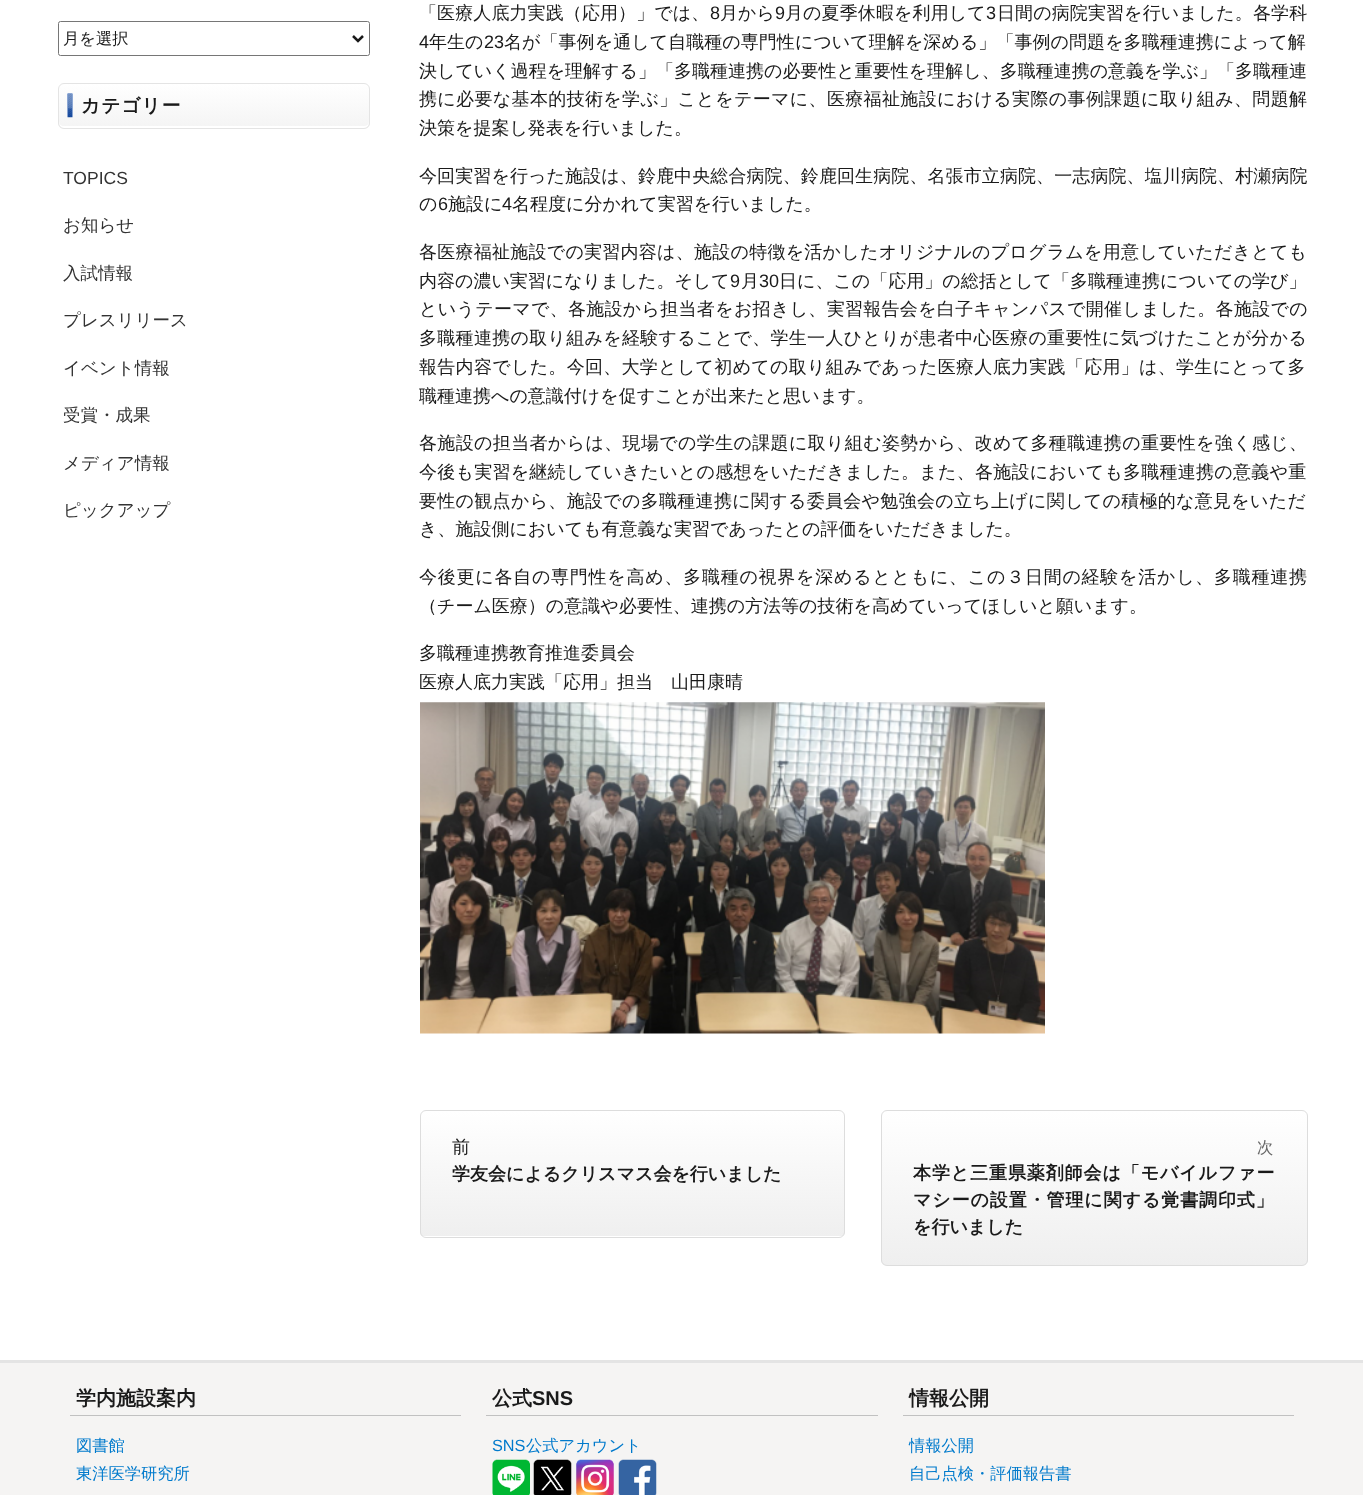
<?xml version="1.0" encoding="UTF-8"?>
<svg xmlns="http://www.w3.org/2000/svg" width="1363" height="1495">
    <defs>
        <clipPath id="clip1"><rect x="58" y="83" width="312" height="46" rx="6"/></clipPath>
        <linearGradient id="g1" gradientUnits="userSpaceOnUse" x1="214" y1="84" x2="214" y2="128"><stop offset="0" stop-color="#FFFFFF"/><stop offset="1" stop-color="#F4F4F4"/></linearGradient>
        <clipPath id="clip2"><rect x="420" y="1110" width="425" height="128" rx="6"/></clipPath>
        <linearGradient id="g2" gradientUnits="userSpaceOnUse" x1="633" y1="1111" x2="633" y2="1236"><stop offset="0" stop-color="#FFFFFF"/><stop offset="1" stop-color="#EFEFEF"/></linearGradient>
        <clipPath id="clip3"><rect x="881" y="1110" width="427" height="156" rx="6"/></clipPath>
        <linearGradient id="g3" gradientUnits="userSpaceOnUse" x1="1094" y1="1111" x2="1094" y2="1265"><stop offset="0" stop-color="#FFFFFF"/><stop offset="1" stop-color="#EFEFEF"/></linearGradient>
    </defs>
    <rect width="100%" height="100%" fill="#FFFFFF"/>
    <rect x="58.5" y="21.5" width="311" height="34" rx="2" fill="none" stroke="#767676"/>
    <path d="M 353 36 L 358 41 L 363 36" fill="none" stroke="#1A1A1A" stroke-width="2.5"/>
    <text x="63" y="44" font-family="WenQuanYi Zen Hei" font-size="16.25" font-weight="500" fill="#1A1A1A">月を選択</text>
    <g clip-path="url(#clip1)">
        <rect x="58" y="84" width="312" height="44" fill="url(#g1)"/>
    </g>
    <path d="M 59 121 V 123 C 59 126 61 128 64 128 H 364 C 367 128 369 126 369 123 V 121 C 369 124 367 126 364 126 H 64 C 61 126 59 124 59 121 Z" fill="#FFFFFF"/>
    <rect x="58.5" y="83.5" width="311" height="45" rx="5.5" fill="none" stroke="#E4E4E4"/>
    <image x="67" y="93" width="6" height="25" href="img_01.png"/>
    <text x="81" y="112" font-family="WenQuanYi Zen Hei" font-size="18.75" font-weight="700" letter-spacing="1" fill="#1A1A1A">カテゴリー</text>
    <text x="63" y="184" font-family="Liberation Sans" font-size="17.5" fill="#333333">TOPICS</text>
    <text x="63" y="231" font-family="WenQuanYi Zen Hei" font-size="17.5" font-weight="500" fill="#333333">お知らせ</text>
    <text x="63" y="279" font-family="WenQuanYi Zen Hei" font-size="17.5" font-weight="500" fill="#333333">入試情報</text>
    <text x="63" y="326" font-family="WenQuanYi Zen Hei" font-size="17.5" font-weight="500" fill="#333333">プレスリリース</text>
    <text x="63" y="374" font-family="WenQuanYi Zen Hei" font-size="17.5" font-weight="500" fill="#333333">イベント情報</text>
    <text x="63" y="421" font-family="WenQuanYi Zen Hei" font-size="17.5" font-weight="500" fill="#333333">受賞・成果</text>
    <text x="63" y="469" font-family="WenQuanYi Zen Hei" font-size="17.5" font-weight="500" fill="#333333">メディア情報</text>
    <text x="63" y="516" font-family="WenQuanYi Zen Hei" font-size="17.5" font-weight="500" fill="#333333">ピックアップ</text>
    <text x="419" y="19" font-family="WenQuanYi Zen Hei" font-size="18" font-weight="500" letter-spacing="0.1" fill="#1A1A1A">「医療人底力実践（応用）」では、</text>
    <text x="710" y="19" font-family="Liberation Sans" font-size="18" letter-spacing="0.1" fill="#1A1A1A">8</text>
    <text x="720" y="19" font-family="WenQuanYi Zen Hei" font-size="18" font-weight="500" letter-spacing="0.1" fill="#1A1A1A">月から</text>
    <text x="775" y="19" font-family="Liberation Sans" font-size="18" letter-spacing="0.1" fill="#1A1A1A">9</text>
    <text x="785" y="19" font-family="WenQuanYi Zen Hei" font-size="18" font-weight="500" letter-spacing="0.1" fill="#1A1A1A">月の夏季休暇を利用して</text>
    <text x="986" y="19" font-family="Liberation Sans" font-size="18" letter-spacing="0.1" fill="#1A1A1A">3</text>
    <text x="997" y="19" font-family="WenQuanYi Zen Hei" font-size="18" font-weight="500" letter-spacing="0.1" fill="#1A1A1A">日間の病院実習を行いました。各学科</text>
    <text x="419" y="48" font-family="Liberation Sans" font-size="18" letter-spacing="0.05" fill="#1A1A1A">4</text>
    <text x="429" y="48" font-family="WenQuanYi Zen Hei" font-size="18" font-weight="500" letter-spacing="0.05" fill="#1A1A1A">年生の</text>
    <text x="484" y="48" font-family="Liberation Sans" font-size="18" letter-spacing="0.05" fill="#1A1A1A">23</text>
    <text x="504" y="48" font-family="WenQuanYi Zen Hei" font-size="18" font-weight="500" letter-spacing="0.05" fill="#1A1A1A">名が「事例を通して自職種の専門性について理解を深める」「事例の問題を多職種連携によって解</text>
    <text x="419" y="77" font-family="WenQuanYi Zen Hei" font-size="18" font-weight="500" fill="#1A1A1A">決していく過程を理解する」「多職種連携の必要性と重要性を理解し、多職種連携の意義を学ぶ」「多職種連</text>
    <text x="419" y="105" font-family="WenQuanYi Zen Hei" font-size="18" font-weight="500" letter-spacing="0.35" fill="#1A1A1A">携に必要な基本的技術を学ぶ」ことをテーマに、医療福祉施設における実際の事例課題に取り組み、問題解</text>
    <text x="419" y="134" font-family="WenQuanYi Zen Hei" font-size="18" font-weight="500" fill="#1A1A1A">決策を提案し発表を行いました。</text>
    <text x="419" y="182" font-family="WenQuanYi Zen Hei" font-size="18" font-weight="500" letter-spacing="0.1" fill="#1A1A1A">今回実習を行った施設は、鈴鹿中央総合病院、鈴鹿回生病院、名張市立病院、一志病院、塩川病院、村瀬病院</text>
    <text x="419" y="210" font-family="WenQuanYi Zen Hei" font-size="18" font-weight="500" fill="#1A1A1A">の</text>
    <text x="438" y="210" font-family="Liberation Sans" font-size="18" fill="#1A1A1A">6</text>
    <text x="448" y="210" font-family="WenQuanYi Zen Hei" font-size="18" font-weight="500" fill="#1A1A1A">施設に</text>
    <text x="502" y="210" font-family="Liberation Sans" font-size="18" fill="#1A1A1A">4</text>
    <text x="512" y="210" font-family="WenQuanYi Zen Hei" font-size="18" font-weight="500" fill="#1A1A1A">名程度に分かれて実習を行いました。</text>
    <text x="419" y="258" font-family="WenQuanYi Zen Hei" font-size="18" font-weight="500" letter-spacing="0.25" fill="#1A1A1A">各医療福祉施設での実習内容は、施設の特徴を活かしたオリジナルのプログラムを用意していただきとても</text>
    <text x="419" y="287" font-family="WenQuanYi Zen Hei" font-size="18" font-weight="500" fill="#1A1A1A">内容の濃い実習になりました。そして</text>
    <text x="730" y="287" font-family="Liberation Sans" font-size="18" fill="#1A1A1A">9</text>
    <text x="741" y="287" font-family="WenQuanYi Zen Hei" font-size="18" font-weight="500" fill="#1A1A1A">月</text>
    <text x="759" y="287" font-family="Liberation Sans" font-size="18" fill="#1A1A1A">30</text>
    <text x="779" y="287" font-family="WenQuanYi Zen Hei" font-size="18" font-weight="500" fill="#1A1A1A">日に、この「応用」の総括として「多職種連携についての学び」</text>
    <text font-family="WenQuanYi Zen Hei" font-size="18" font-weight="500" letter-spacing="0.3" fill="#1A1A1A">
        <tspan x="419" y="315">というテーマで、各施設から担当者をお招きし、実習報告会を白子キャンパスで開催しました。各施設での</tspan>
        <tspan x="419" y="344">多職種連携の取り組みを経験することで、学生一人ひとりが患者中心医療の重要性に気づけたことが分かる</tspan>
        <tspan x="419" y="373">報告内容でした。今回、大学として初めての取り組みであった医療人底力実践「応用」は、学生にとって多</tspan>
    </text>
    <text x="419" y="402" font-family="WenQuanYi Zen Hei" font-size="18" font-weight="500" fill="#1A1A1A">職種連携への意識付けを促すことが出来たと思います。</text>
    <text x="419" y="449" font-family="WenQuanYi Zen Hei" font-size="18" font-weight="500" letter-spacing="0.35" fill="#1A1A1A">各施設の担当者からは、現場での学生の課題に取り組む姿勢から、改めて多種職連携の重要性を強く感じ、</text>
    <text x="419" y="478" font-family="WenQuanYi Zen Hei" font-size="18" font-weight="500" letter-spacing="0.25" fill="#1A1A1A">今後も実習を継続していきたいとの感想をいただきました。また、各施設においても多職種連携の意義や重</text>
    <text x="419" y="507" font-family="WenQuanYi Zen Hei" font-size="18" font-weight="500" letter-spacing="0.3" fill="#1A1A1A">要性の観点から、施設での多職種連携に関する委員会や勉強会の立ち上げに関しての積極的な意見をいただ</text>
    <text x="419" y="535" font-family="WenQuanYi Zen Hei" font-size="18" font-weight="500" fill="#1A1A1A">き、施設側においても有意義な実習であったとの評価をいただきました。</text>
    <text x="419" y="583" font-family="WenQuanYi Zen Hei" font-size="18" font-weight="500" letter-spacing="0.75" fill="#1A1A1A">今後更に各自の専門性を高め、多職種の視界を深めるとともに、この３日間の経験を活かし、多職種連携</text>
    <text x="419" y="612" font-family="WenQuanYi Zen Hei" font-size="18" font-weight="500" fill="#1A1A1A">（チーム医療）の意識や必要性、連携の方法等の技術を高めていってほしいと願います。</text>
    <text font-family="WenQuanYi Zen Hei" font-size="18" font-weight="500" fill="#1A1A1A">
        <tspan x="419" y="659">多職種連携教育推進委員会</tspan>
        <tspan x="419" y="688">医療人底力実践「応用」担当　山田康晴</tspan>
    </text>
    <image x="420" y="702" width="625" height="332" href="img_02.png"/>
    <g clip-path="url(#clip2)">
        <rect x="420" y="1111" width="425" height="125" fill="url(#g2)"/>
    </g>
    <rect x="420.5" y="1110.5" width="424" height="127" rx="5.5" fill="none" stroke="#DDDDDD"/>
    <text x="452" y="1153" font-family="WenQuanYi Zen Hei" font-size="18" font-weight="500" fill="#1A1A1A">前</text>
    <text x="452" y="1180" font-family="WenQuanYi Zen Hei" font-size="18" font-weight="700" fill="#1A1A1A">学友会によるクリスマス会を行いました</text>
    <g clip-path="url(#clip3)">
        <rect x="881" y="1111" width="427" height="154" fill="url(#g3)"/>
    </g>
    <rect x="881.5" y="1110.5" width="426" height="155" rx="5.5" fill="none" stroke="#DDDDDD"/>
    <text x="1257" y="1153" font-family="WenQuanYi Zen Hei" font-size="16.25" font-weight="500" letter-spacing="1" fill="#686868">次</text>
    <text font-family="WenQuanYi Zen Hei" font-size="18" font-weight="700" letter-spacing="0.9" fill="#1A1A1A">
        <tspan x="913" y="1179">本学と三重県薬剤師会は「モバイルファー</tspan>
        <tspan x="913" y="1206">マシーの設置・管理に関する覚書調印式」</tspan>
    </text>
    <text x="913" y="1233" font-family="WenQuanYi Zen Hei" font-size="18" font-weight="700" fill="#1A1A1A">を行いました</text>
    <rect x="0" y="1363" width="1363" height="132" fill="#F5F4F3"/>
    <rect x="0" y="1360" width="1363" height="3" fill="#E4E4E4"/>
    <rect x="70" y="1415" width="391" height="1" fill="#C1C1C1"/>
    <text x="76" y="1405" font-family="WenQuanYi Zen Hei" font-size="20" font-weight="700" fill="#1A1A1A">学内施設案内</text>
    <text font-family="WenQuanYi Zen Hei" font-size="16.25" font-weight="500" fill="#007ACC">
        <tspan x="76" y="1451">図書館</tspan>
        <tspan x="76" y="1479">東洋医学研究所</tspan>
    </text>
    <rect x="486" y="1415" width="392" height="1" fill="#C1C1C1"/>
    <text x="492" y="1405" font-family="WenQuanYi Zen Hei" font-size="20" font-weight="700" fill="#1A1A1A">公式</text>
    <text x="532" y="1405" font-family="Liberation Sans" font-size="20" font-weight="700" fill="#1A1A1A">SNS</text>
    <text x="492" y="1451" font-family="Liberation Sans" font-size="16.25" fill="#007ACC">SNS</text>
    <text x="526" y="1451" font-family="WenQuanYi Zen Hei" font-size="16.25" font-weight="500" fill="#007ACC">公式アカウント</text>
    <image x="492" y="1459" width="38" height="36" href="img_03.png"/>
    <image x="533" y="1459" width="39" height="36" href="img_04.png"/>
    <image x="576" y="1459" width="38" height="36" href="img_05.png"/>
    <image x="618" y="1459" width="39" height="36" href="img_06.png"/>
    <rect x="903" y="1415" width="391" height="1" fill="#C1C1C1"/>
    <text x="909" y="1405" font-family="WenQuanYi Zen Hei" font-size="20" font-weight="700" fill="#1A1A1A">情報公開</text>
    <text font-family="WenQuanYi Zen Hei" font-size="16.25" font-weight="500" fill="#007ACC">
        <tspan x="909" y="1451">情報公開</tspan>
        <tspan x="909" y="1479">自己点検・評価報告書</tspan>
    </text>
</svg>
